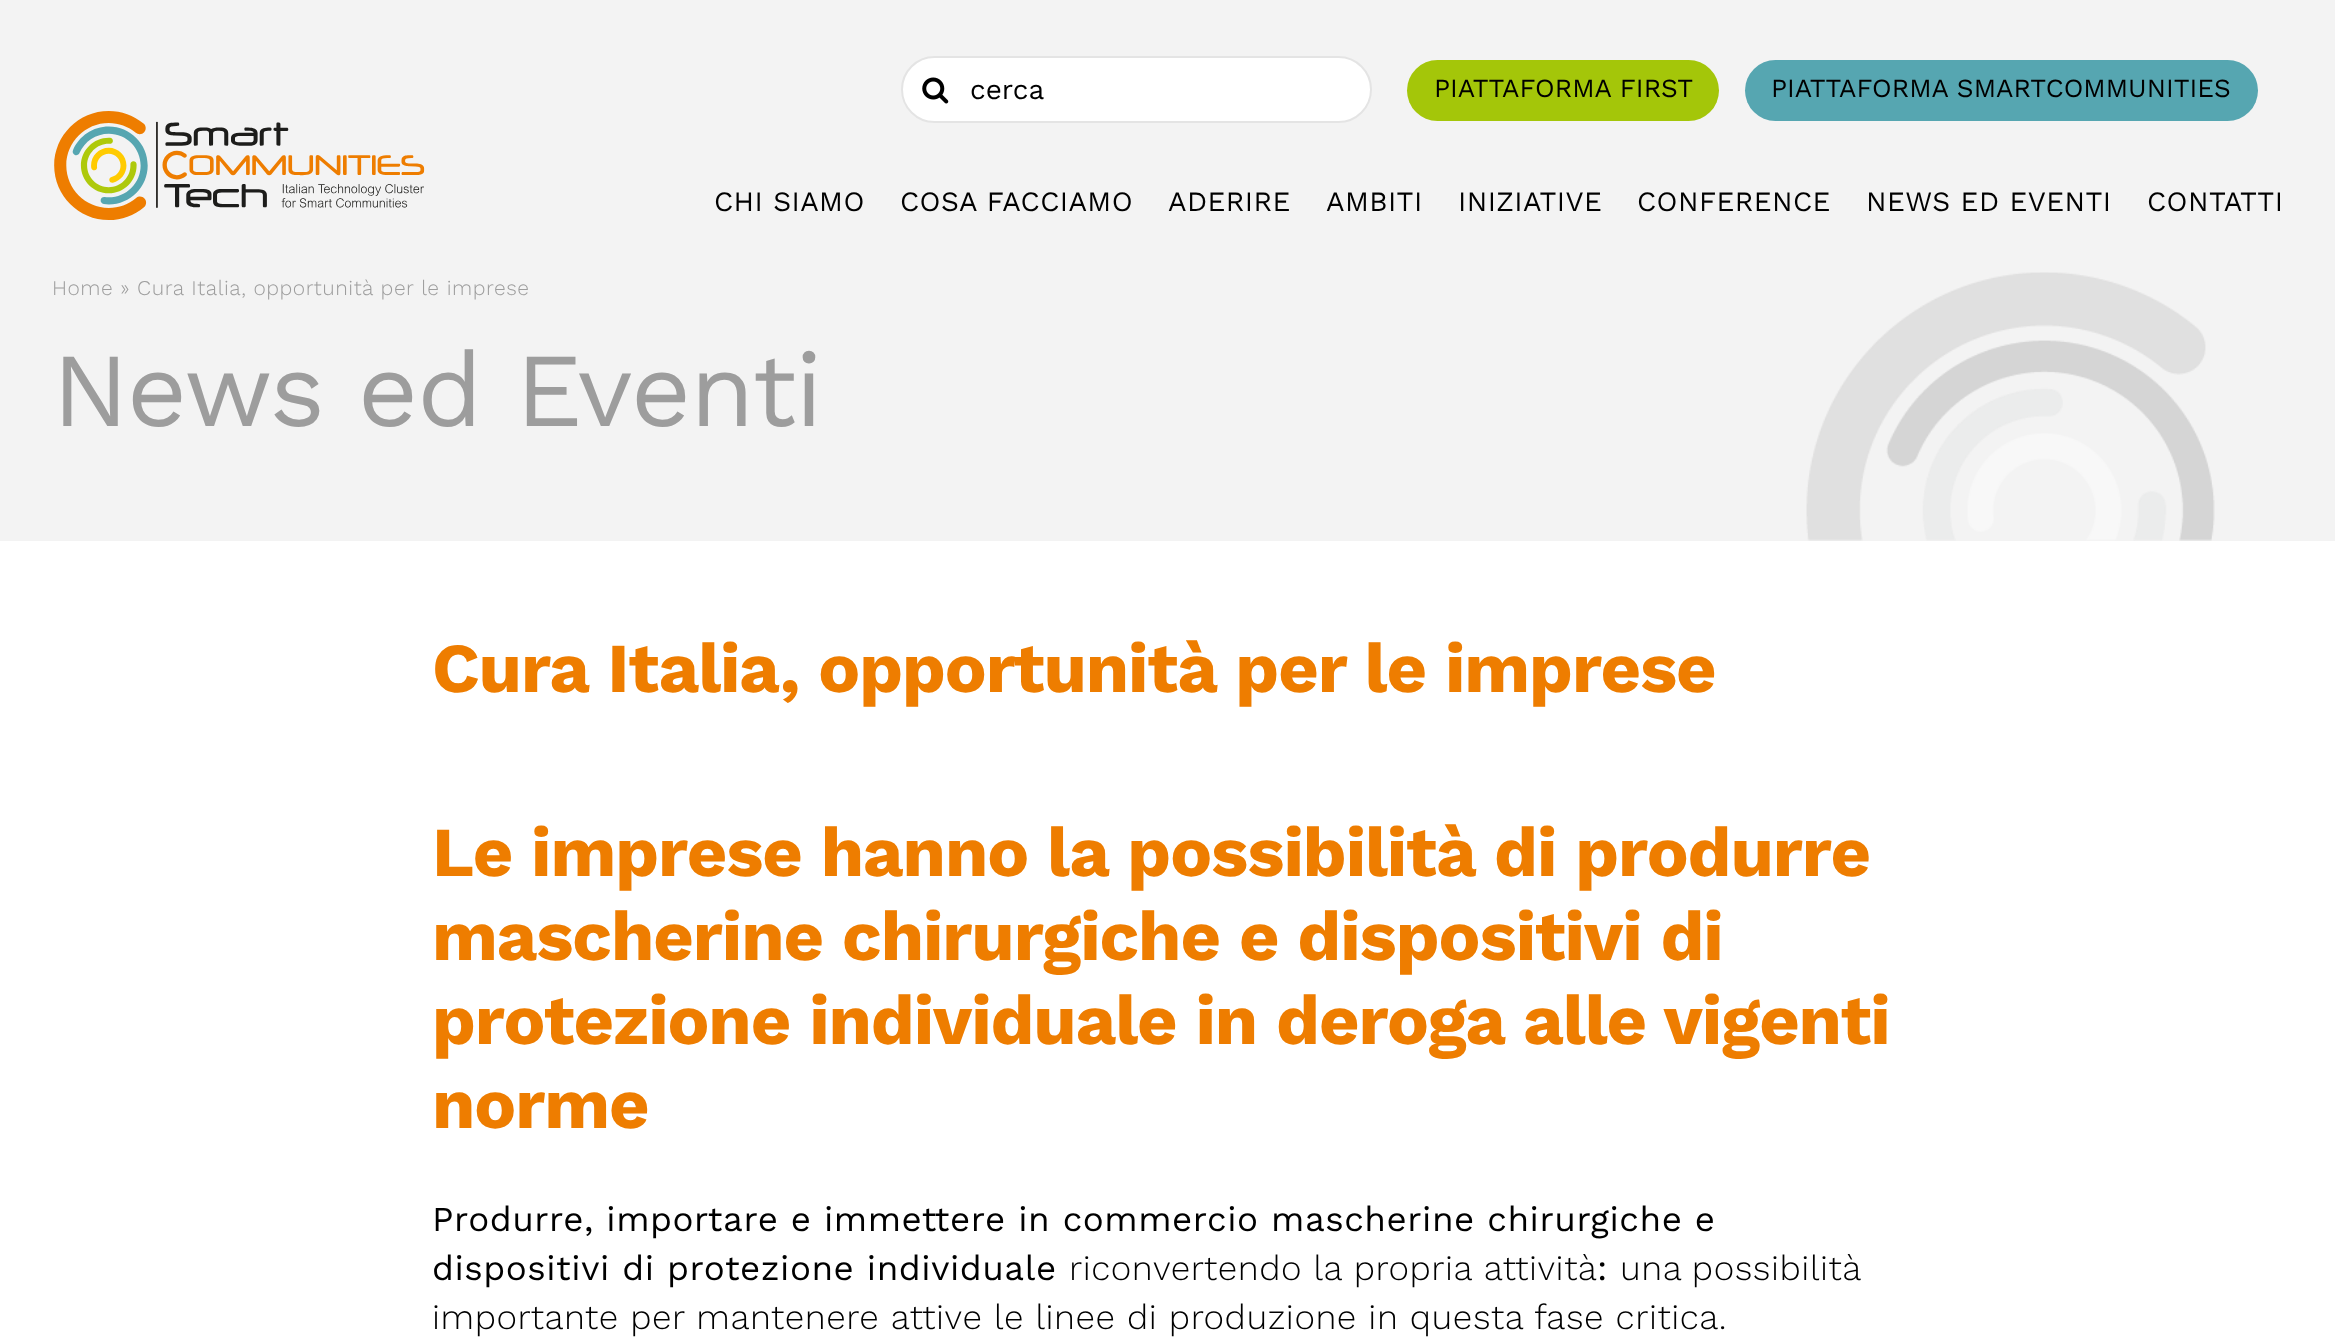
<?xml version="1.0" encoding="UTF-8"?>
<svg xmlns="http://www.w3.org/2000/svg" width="2335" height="1344">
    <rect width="100%" height="100%" fill="#FFFFFF"/>
    <rect x="0" y="0" width="2335" height="541" fill="#F3F3F3"/>
    <rect x="902" y="57" width="469" height="65" rx="32.5" fill="#FFFFFF" stroke="#E4E4E4" stroke-width="2"/>
    <image x="922" y="77" width="27" height="27" href="img_01.png"/>
    <text x="970" y="99" font-family="Work Sans" font-size="28" fill="#000000">cerca</text>
    <rect x="1407" y="60" width="312" height="61" rx="30.5" fill="#A4C609"/>
    <text x="1434" y="97" font-family="Work Sans" font-size="26.25" fill="#000000">PIATTAFORMA FIRST</text>
    <rect x="1745" y="60" width="513" height="61" rx="30.5" fill="#56A6B1"/>
    <text x="1771" y="97" font-family="Work Sans" font-size="26.25" fill="#000000">PIATTAFORMA SMARTCOMMUNITIES</text>
    <image x="54" y="111" width="371" height="109" href="img_02.png"/>
    <text x="714" y="211" font-family="Work Sans" font-size="28" letter-spacing="0.4" fill="#000000">CHI SIAMO</text>
    <text x="900" y="211" font-family="Work Sans" font-size="28" letter-spacing="0.4" fill="#000000">COSA FACCIAMO</text>
    <text x="1168" y="211" font-family="Work Sans" font-size="28" letter-spacing="0.4" fill="#000000">ADERIRE</text>
    <text x="1326" y="211" font-family="Work Sans" font-size="28" letter-spacing="0.4" fill="#000000">AMBITI</text>
    <text x="1458" y="211" font-family="Work Sans" font-size="28" letter-spacing="0.4" fill="#000000">INIZIATIVE</text>
    <text x="1637" y="211" font-family="Work Sans" font-size="28" letter-spacing="0.4" fill="#000000">CONFERENCE</text>
    <text x="1866" y="211" font-family="Work Sans" font-size="28" letter-spacing="0.4" fill="#000000">NEWS ED EVENTI</text>
    <text x="2147" y="211" font-family="Work Sans" font-size="28" letter-spacing="0.4" fill="#000000">CONTATTI</text>
    <image x="1806" y="272" width="409" height="269" href="img_03.png"/>
    <text x="52" y="295" font-family="Work Sans" font-size="21" font-weight="300" letter-spacing="0.53" fill="#9D9D9D">Home » Cura Italia, opportunità per le imprese</text>
    <text x="52" y="426" font-family="Work Sans" font-size="105" letter-spacing="-1.5" fill="#9D9D9D">News ed Eventi</text>
    <text x="432" y="692" font-family="Work Sans" font-size="70" font-weight="700" letter-spacing="-1.05" fill="#EE7D00">Cura Italia, opportunità per le imprese</text>
    <text font-family="Work Sans" font-size="70" font-weight="700" letter-spacing="-1.05" fill="#EE7D00">
        <tspan x="432" y="876">Le imprese hanno la possibilità di produrre</tspan>
        <tspan x="432" y="960">mascherine chirurgiche e dispositivi di</tspan>
        <tspan x="432" y="1044">protezione individuale in deroga alle vigenti</tspan>
        <tspan x="432" y="1128">norme</tspan>
    </text>
    <text font-family="Work Sans" font-size="35" letter-spacing="0.53" fill="#000000">
        <tspan x="432" y="1231">Produrre, importare e immettere in commercio mascherine chirurgiche e</tspan>
        <tspan x="432" y="1280">dispositivi di protezione individuale</tspan>
    </text>
    <text x="1069" y="1280" font-family="Work Sans" font-size="35" font-weight="300" letter-spacing="0.53" fill="#000000">riconvertendo la propria attività</text>
    <text x="1597" y="1280" font-family="Work Sans" font-size="35" letter-spacing="0.53" fill="#000000">:</text>
    <text x="1620" y="1280" word-spacing="-1" font-family="Work Sans" font-size="35" font-weight="300" letter-spacing="0.53" fill="#000000">una possibilità</text>
    <text x="432" y="1329" font-family="Work Sans" font-size="35" font-weight="300" letter-spacing="0.53" fill="#000000">importante per mantenere attive le linee di produzione in questa fase critica.</text>
</svg>
